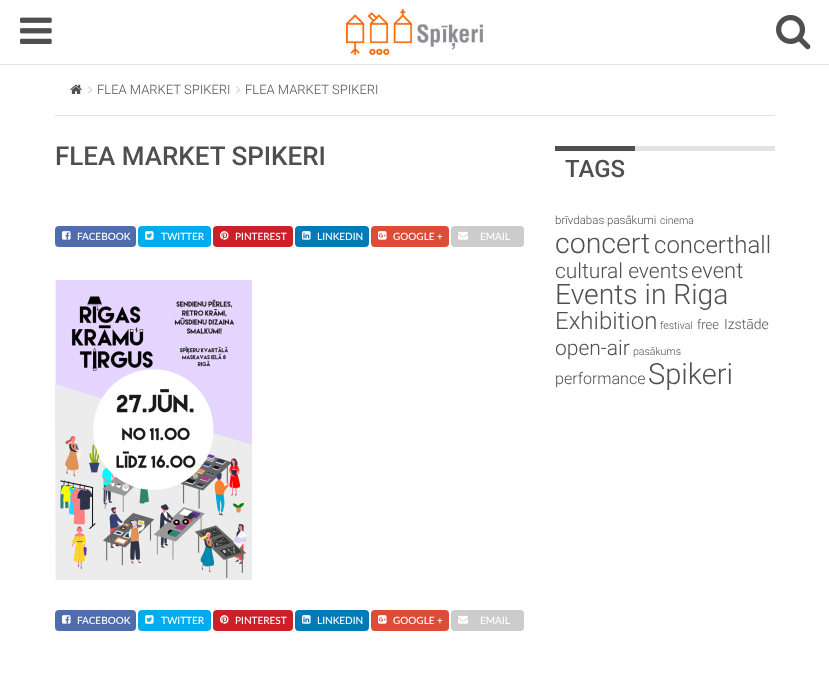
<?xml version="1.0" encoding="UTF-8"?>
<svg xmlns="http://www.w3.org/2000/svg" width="829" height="679">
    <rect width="100%" height="100%" fill="#FFFFFF"/>
    <rect x="0" y="64" width="829" height="1" fill="#E3E3E3"/>
    <image x="20" y="17" width="32" height="27" href="img_01.png"/>
    <image x="346" y="9" width="137" height="46" href="img_02.png"/>
    <image x="776" y="14" width="35" height="36" href="img_03.png"/>
    <rect x="55" y="115" width="720" height="1" fill="#E3E3E3"/>
    <image x="70" y="84" width="12" height="10" href="img_04.png"/>
    <image x="88" y="86" width="5" height="8" href="img_05.png"/>
    <text x="97" y="94" font-family="Roboto" font-size="13" font-weight="300" fill="#4F4F4F">FLEA MARKET SPIKERI</text>
    <image x="236" y="86" width="5" height="8" href="img_05.png"/>
    <text x="245" y="94" font-family="Roboto" font-size="13" font-weight="300" fill="#4F4F4F">FLEA MARKET SPIKERI</text>
    <text x="55" y="165" font-family="Roboto" font-size="26" font-weight="500" fill="#4F4F4F">FLEA MARKET SPIKERI</text>
    <rect x="55" y="226" width="81" height="21" rx="4" fill="#506DAB"/>
    <image x="62" y="231" width="9" height="9" href="img_06.png"/>
    <text x="77" y="240" font-family="Lato" font-size="10" font-weight="500" fill="#FFFFFF">FACEBOOK</text>
    <rect x="138" y="226" width="73" height="21" rx="4" fill="#00ACED"/>
    <image x="145" y="231" width="9" height="9" href="img_07.png"/>
    <text x="161" y="240" font-family="Lato" font-size="10" font-weight="500" fill="#FFFFFF">TWITTER</text>
    <rect x="213" y="226" width="80" height="21" rx="4" fill="#CB2027"/>
    <image x="220" y="231" width="9" height="9" href="img_08.png"/>
    <text x="235" y="240" font-family="Lato" font-size="10" font-weight="500" fill="#FFFFFF">PINTEREST</text>
    <rect x="295" y="226" width="74" height="21" rx="4" fill="#007BB6"/>
    <image x="302" y="231" width="9" height="9" href="img_09.png"/>
    <text x="317" y="240" font-family="Lato" font-size="10" font-weight="500" fill="#FFFFFF">LINKEDIN</text>
    <rect x="371" y="226" width="78" height="21" rx="4" fill="#DD4B39"/>
    <image x="378" y="231" width="9" height="9" href="img_10.png"/>
    <text x="393" y="240" font-family="Lato" font-size="10" font-weight="500" fill="#FFFFFF">GOOGLE +</text>
    <rect x="451" y="226" width="73" height="21" rx="4" fill="#CCCCCC"/>
    <image x="458" y="231" width="10" height="9" href="img_11.png"/>
    <text x="480" y="240" font-family="Lato" font-size="10" font-weight="500" fill="#FFFFFF">EMAIL</text>
    <image x="55" y="280" width="197" height="300" href="img_12.png"/>
    <rect x="55" y="610" width="81" height="21" rx="4" fill="#506DAB"/>
    <image x="62" y="615" width="9" height="9" href="img_06.png"/>
    <text x="77" y="624" font-family="Lato" font-size="10" font-weight="500" fill="#FFFFFF">FACEBOOK</text>
    <rect x="138" y="610" width="73" height="21" rx="4" fill="#00ACED"/>
    <image x="145" y="615" width="9" height="9" href="img_07.png"/>
    <text x="161" y="624" font-family="Lato" font-size="10" font-weight="500" fill="#FFFFFF">TWITTER</text>
    <rect x="213" y="610" width="80" height="21" rx="4" fill="#CB2027"/>
    <image x="220" y="615" width="9" height="9" href="img_08.png"/>
    <text x="235" y="624" font-family="Lato" font-size="10" font-weight="500" fill="#FFFFFF">PINTEREST</text>
    <rect x="295" y="610" width="74" height="21" rx="4" fill="#007BB6"/>
    <image x="302" y="615" width="9" height="9" href="img_09.png"/>
    <text x="317" y="624" font-family="Lato" font-size="10" font-weight="500" fill="#FFFFFF">LINKEDIN</text>
    <rect x="371" y="610" width="78" height="21" rx="4" fill="#DD4B39"/>
    <image x="378" y="615" width="9" height="9" href="img_10.png"/>
    <text x="393" y="624" font-family="Lato" font-size="10" font-weight="500" fill="#FFFFFF">GOOGLE +</text>
    <rect x="451" y="610" width="73" height="21" rx="4" fill="#CCCCCC"/>
    <image x="458" y="615" width="10" height="9" href="img_11.png"/>
    <text x="480" y="624" font-family="Lato" font-size="10" font-weight="500" fill="#FFFFFF">EMAIL</text>
    <rect x="635" y="146" width="140" height="5" fill="#E3E3E3"/>
    <rect x="555" y="146" width="80" height="5" fill="#4F4F4F"/>
    <text x="565" y="177" font-family="Roboto" font-size="24" font-weight="500" fill="#4F4F4F">TAGS</text>
    <text x="555" y="224" font-family="Roboto" font-size="11.5" font-weight="300" fill="#4F4F4F">brīvdabas pasākumi</text>
    <text x="660" y="224" font-family="Roboto" font-size="10.5" font-weight="300" fill="#4F4F4F">cinema</text>
    <text x="555" y="253" font-family="Roboto" font-size="28.5" font-weight="300" fill="#4F4F4F">concert</text>
    <text x="654" y="253" font-family="Roboto" font-size="24" font-weight="300" fill="#4F4F4F">concerthall</text>
    <text x="555" y="278" font-family="Roboto" font-size="21" font-weight="300" fill="#4F4F4F">cultural events</text>
    <text x="691" y="278" font-family="Roboto" font-size="22" font-weight="300" fill="#4F4F4F">event</text>
    <text x="555" y="304" font-family="Roboto" font-size="28.25" font-weight="300" fill="#4F4F4F">Events in Riga</text>
    <text x="555" y="329" font-family="Roboto" font-size="24" font-weight="300" fill="#4F4F4F">Exhibition</text>
    <text x="660" y="329" font-family="Roboto" font-size="10.5" font-weight="300" fill="#4F4F4F">festival</text>
    <text x="697" y="329" font-family="Roboto" font-size="13" font-weight="300" fill="#4F4F4F">free</text>
    <text x="724" y="329" font-family="Roboto" font-size="14" font-weight="300" fill="#4F4F4F">Izstāde</text>
    <text x="555" y="355" font-family="Roboto" font-size="21" font-weight="300" fill="#4F4F4F">open-air</text>
    <text x="633" y="355" font-family="Roboto" font-size="10.5" font-weight="300" fill="#4F4F4F">pasākums</text>
    <text x="555" y="384" font-family="Roboto" font-size="16" font-weight="300" fill="#4F4F4F">performance</text>
    <text x="648" y="384" font-family="Roboto" font-size="29" font-weight="300" fill="#4F4F4F">Spikeri</text>
</svg>
